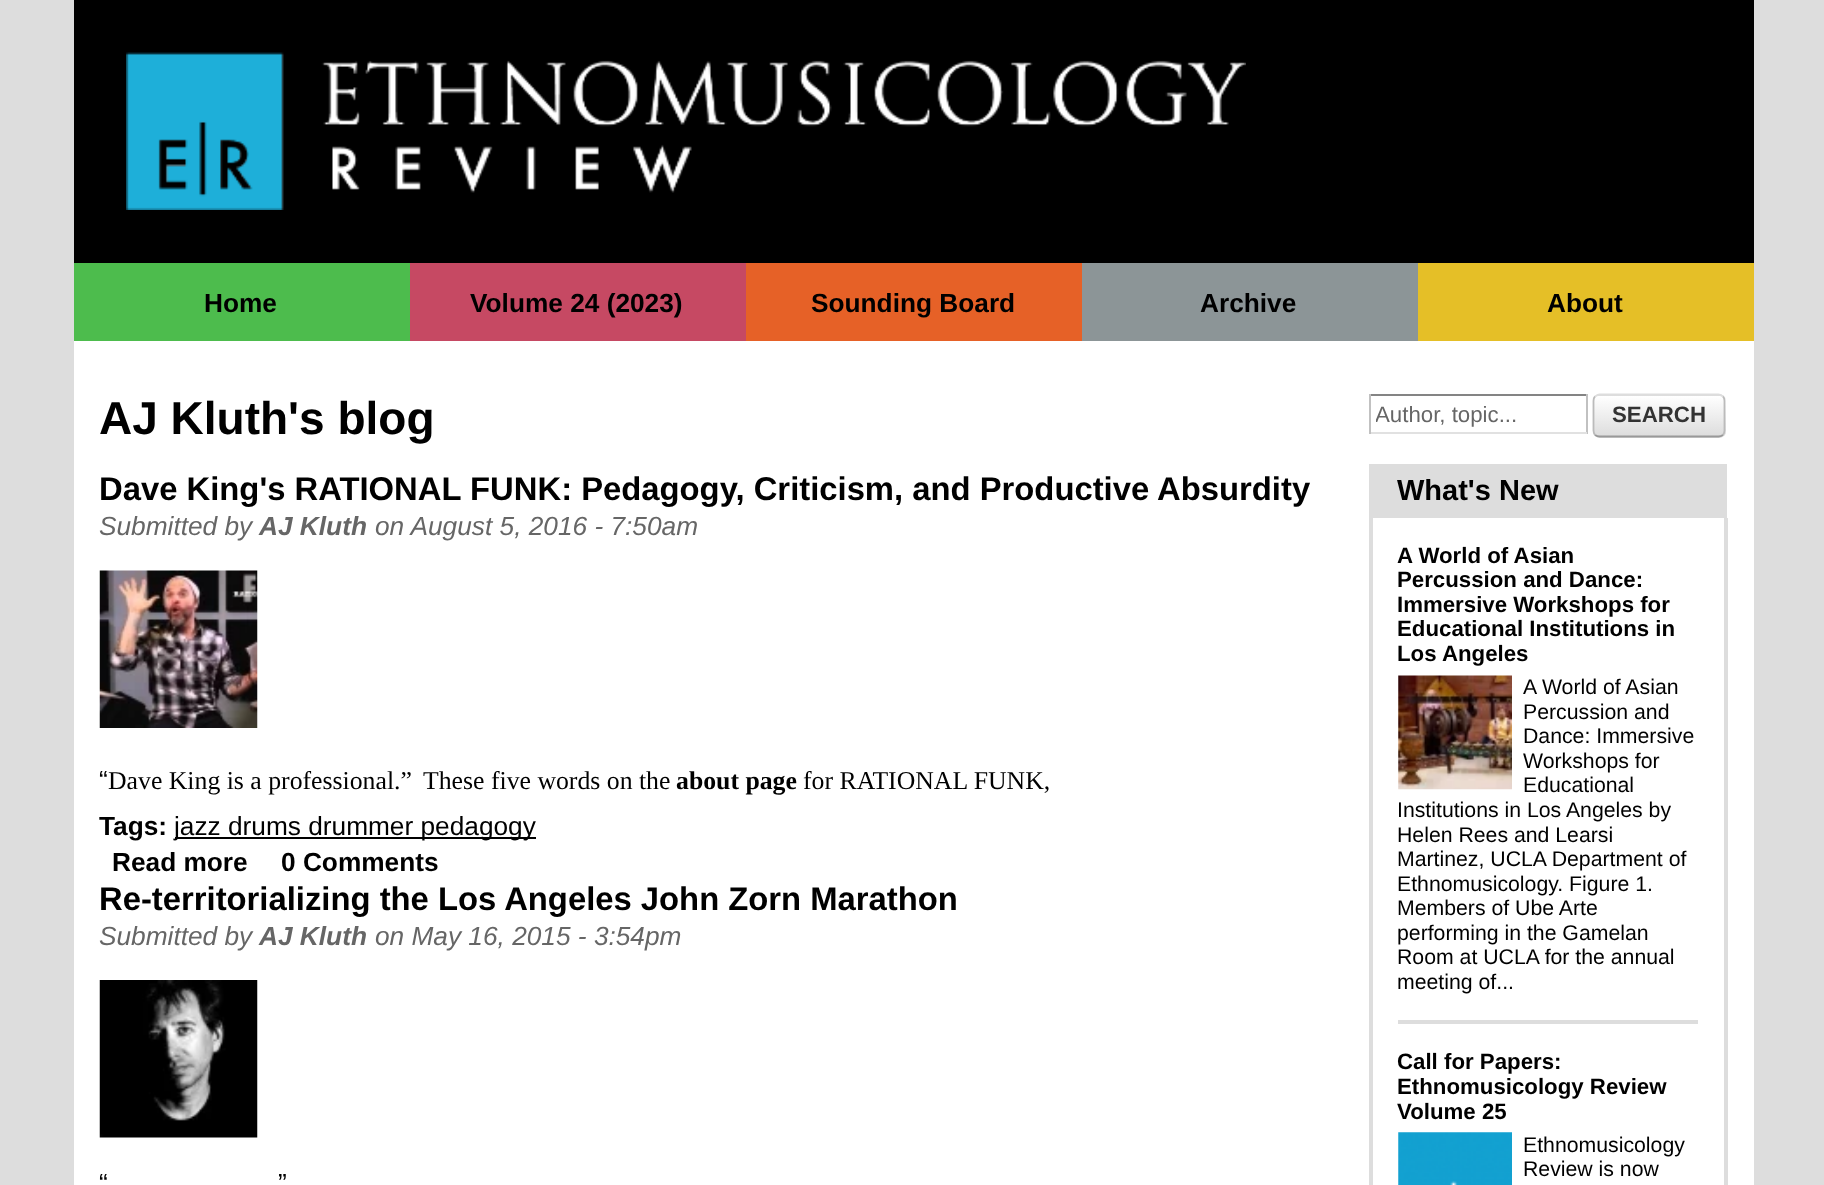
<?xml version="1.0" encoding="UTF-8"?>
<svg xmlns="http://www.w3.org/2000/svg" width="1824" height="1185">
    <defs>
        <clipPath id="clip1"><rect x="1376" y="401" width="204" height="26"/></clipPath>
        <clipPath id="clip2"><rect x="1593" y="394" width="133" height="44" rx="7"/></clipPath>
        <linearGradient id="g1" gradientUnits="userSpaceOnUse" x1="1659" y1="396" x2="1659" y2="436"><stop offset="0" stop-color="#FFFFFF"/><stop offset="1" stop-color="#DDDDDD"/></linearGradient>
    </defs>
    <rect width="100%" height="100%" fill="#DDDDDD"/>
    <rect x="74" y="341" width="1680" height="844" fill="#FFFFFF"/>
    <rect x="74" y="0" width="1680" height="263" fill="#000000"/>
    <image x="126" y="52" width="1120" height="158" href="img_01.png"/>
    <rect x="74" y="263" width="336" height="78" fill="#4DBC4D"/>
    <text x="204" y="312" font-family="Liberation Sans" font-size="26.25" font-weight="700" fill="#000000">Home</text>
    <rect x="410" y="263" width="336" height="78" fill="#C64963"/>
    <text x="470" y="312" font-family="Liberation Sans" font-size="26.25" font-weight="700" fill="#000000">Volume 24 (2023)</text>
    <rect x="746" y="263" width="336" height="78" fill="#E66127"/>
    <text x="811" y="312" font-family="Liberation Sans" font-size="26.25" font-weight="700" fill="#000000">Sounding Board</text>
    <rect x="1082" y="263" width="336" height="78" fill="#8C9597"/>
    <text x="1200" y="312" font-family="Liberation Sans" font-size="26.25" font-weight="700" fill="#000000">Archive</text>
    <rect x="1418" y="263" width="336" height="78" fill="#E5BF27"/>
    <text x="1547" y="312" font-family="Liberation Sans" font-size="26.25" font-weight="700" fill="#000000">About</text>
    <text x="99" y="434" font-family="Liberation Sans" font-size="46" font-weight="700" fill="#000000">AJ Kluth's blog</text>
    <text x="99" y="500" font-family="Liberation Sans" font-size="32.8" font-weight="700" fill="#000000">Dave King's RATIONAL FUNK: Pedagogy, Criticism, and Productive Absurdity</text>
    <text x="99" y="535" font-family="Liberation Sans" font-size="26.25" font-style="italic" fill="#666666">Submitted by</text>
    <text x="259" y="535" font-family="Liberation Sans" font-size="26.25" font-weight="700" font-style="italic" fill="#666666">AJ Kluth</text>
    <text x="375" y="535" font-family="Liberation Sans" font-size="26.25" font-style="italic" fill="#666666">on August 5, 2016 - 7:50am</text>
    <image x="99" y="570" width="159" height="158" href="img_02.png"/>
    <text x="99" y="789" font-family="Liberation Sans" font-size="26.25" fill="#000000">“</text>
    <text x="108" y="789" font-family="Liberation Serif" font-size="25.75" fill="#000000">Dave King is a professional.”</text>
    <text x="423" y="789" font-family="Liberation Serif" font-size="25.75" fill="#000000">These five words on the</text>
    <text x="676" y="789" font-family="Liberation Serif" font-size="25.75" font-weight="700" fill="#000000">about page</text>
    <text x="803" y="789" font-family="Liberation Serif" font-size="25.75" fill="#000000">for RATIONAL FUNK,</text>
    <text x="99" y="835" font-family="Liberation Sans" font-size="26.25" font-weight="700" fill="#000000">Tags:</text>
    <rect x="175" y="837" width="361" height="2" fill="#000000"/>
    <text x="174" y="835" font-family="Liberation Sans" font-size="26.25" fill="#000000">jazz drums drummer pedagogy</text>
    <text x="112" y="871" font-family="Liberation Sans" font-size="26.25" font-weight="700" fill="#000000">Read more</text>
    <text x="281" y="871" font-family="Liberation Sans" font-size="26.25" font-weight="700" fill="#000000">0 Comments</text>
    <text x="99" y="910" font-family="Liberation Sans" font-size="32.8" font-weight="700" fill="#000000">Re-territorializing the Los Angeles John Zorn Marathon</text>
    <text x="99" y="945" font-family="Liberation Sans" font-size="26.25" font-style="italic" fill="#666666">Submitted by</text>
    <text x="259" y="945" font-family="Liberation Sans" font-size="26.25" font-weight="700" font-style="italic" fill="#666666">AJ Kluth</text>
    <text x="375" y="945" font-family="Liberation Sans" font-size="26.25" font-style="italic" fill="#666666">on May 16, 2015 - 3:54pm</text>
    <image x="99" y="980" width="159" height="158" href="img_03.png"/>
    <text x="99" y="1192" font-family="Liberation Sans" font-size="26.25" fill="#000000">“</text>
    <text x="278" y="1192" font-family="Liberation Sans" font-size="26.25" fill="#000000">”</text>
    <rect x="1369" y="394" width="218" height="2" fill="#848484"/>
    <rect x="1586" y="394" width="2" height="40" fill="#C1C1C1"/>
    <rect x="1369" y="432" width="218" height="2" fill="#E1E1E1"/>
    <rect x="1369" y="394" width="2" height="40" fill="#C1C1C1"/>
    <g clip-path="url(#clip1)">
        <text x="1375" y="422" font-family="Liberation Sans" font-size="22.25" fill="#666666">Author, topic...</text>
    </g>
    <rect x="1593" y="394" width="133" height="44" rx="7" fill="#DDDDDD"/>
    <g clip-path="url(#clip2)">
        <rect x="1593" y="396" width="133" height="40" fill="url(#g1)"/>
    </g>
    <path d="M 1595 396.5 C 1596.5 395.5 1598 394.5 1599.5 394.5 H 1718.5 C 1720 394.5 1721.5 395.5 1723 396.5" fill="none" stroke="#DDDDDD" stroke-width="1.8"/>
    <path d="M 1723 396.5 C 1724 397.5 1724.5 399 1724.5 401 V 430.5 C 1724.5 432 1724 433.5 1723 435" fill="none" stroke="#BBBBBB" stroke-width="1.8"/>
    <path d="M 1723 435 C 1721.5 436 1720 436.5 1718.5 436.5 H 1599.5 C 1598 436.5 1596.5 436 1595 435" fill="none" stroke="#999999" stroke-width="1.8"/>
    <path d="M 1595 435 C 1594 433.5 1593.5 432 1593.5 430.5 V 401 C 1593.5 399 1594 397.5 1595 396.5" fill="none" stroke="#BBBBBB" stroke-width="1.8"/>
    <text x="1612" y="422" font-family="Liberation Sans" font-size="22.25" font-weight="700" fill="#333333">SEARCH</text>
    <rect x="1369" y="464" width="358" height="54" fill="#DDDDDD"/>
    <text x="1397" y="500" font-family="Liberation Sans" font-size="29" font-weight="700" fill="#000000">What's New</text>
    <rect x="1724" y="518" width="4" height="667" fill="#DDDDDD"/>
    <rect x="1369" y="518" width="4" height="667" fill="#DDDDDD"/>
    <rect x="1398" y="1020" width="300" height="4" fill="#DDDDDD"/>
    <text font-family="Liberation Sans" font-size="22.25" font-weight="700" fill="#000000">
        <tspan x="1397" y="563">A World of Asian</tspan>
        <tspan x="1397" y="587">Percussion and Dance:</tspan>
        <tspan x="1397" y="612">Immersive Workshops for</tspan>
        <tspan x="1397" y="636">Educational Institutions in</tspan>
        <tspan x="1397" y="661">Los Angeles</tspan>
    </text>
    <image x="1398" y="675" width="114" height="115" href="img_04.png"/>
    <text font-family="Liberation Sans" font-size="21.25" fill="#000000">
        <tspan x="1523" y="694">A World of Asian</tspan>
        <tspan x="1523" y="719">Percussion and</tspan>
        <tspan x="1523" y="743">Dance: Immersive</tspan>
        <tspan x="1523" y="768">Workshops for</tspan>
        <tspan x="1523" y="792">Educational</tspan>
    </text>
    <text font-family="Liberation Sans" font-size="21.25" fill="#000000">
        <tspan x="1397" y="817">Institutions in Los Angeles by</tspan>
        <tspan x="1397" y="842">Helen Rees and Learsi</tspan>
        <tspan x="1397" y="866">Martinez, UCLA Department of</tspan>
        <tspan x="1397" y="891">Ethnomusicology. Figure 1.</tspan>
        <tspan x="1397" y="915">Members of Ube Arte</tspan>
        <tspan x="1397" y="940">performing in the Gamelan</tspan>
        <tspan x="1397" y="964">Room at UCLA for the annual</tspan>
        <tspan x="1397" y="989">meeting of...</tspan>
    </text>
    <text font-family="Liberation Sans" font-size="22.25" font-weight="700" fill="#000000">
        <tspan x="1397" y="1069">Call for Papers:</tspan>
        <tspan x="1397" y="1094">Ethnomusicology Review</tspan>
        <tspan x="1397" y="1119">Volume 25</tspan>
    </text>
    <image x="1398" y="1132" width="114" height="53" href="img_05.png"/>
    <text font-family="Liberation Sans" font-size="21.25" fill="#000000">
        <tspan x="1523" y="1152">Ethnomusicology</tspan>
        <tspan x="1523" y="1176">Review is now</tspan>
    </text>
</svg>
